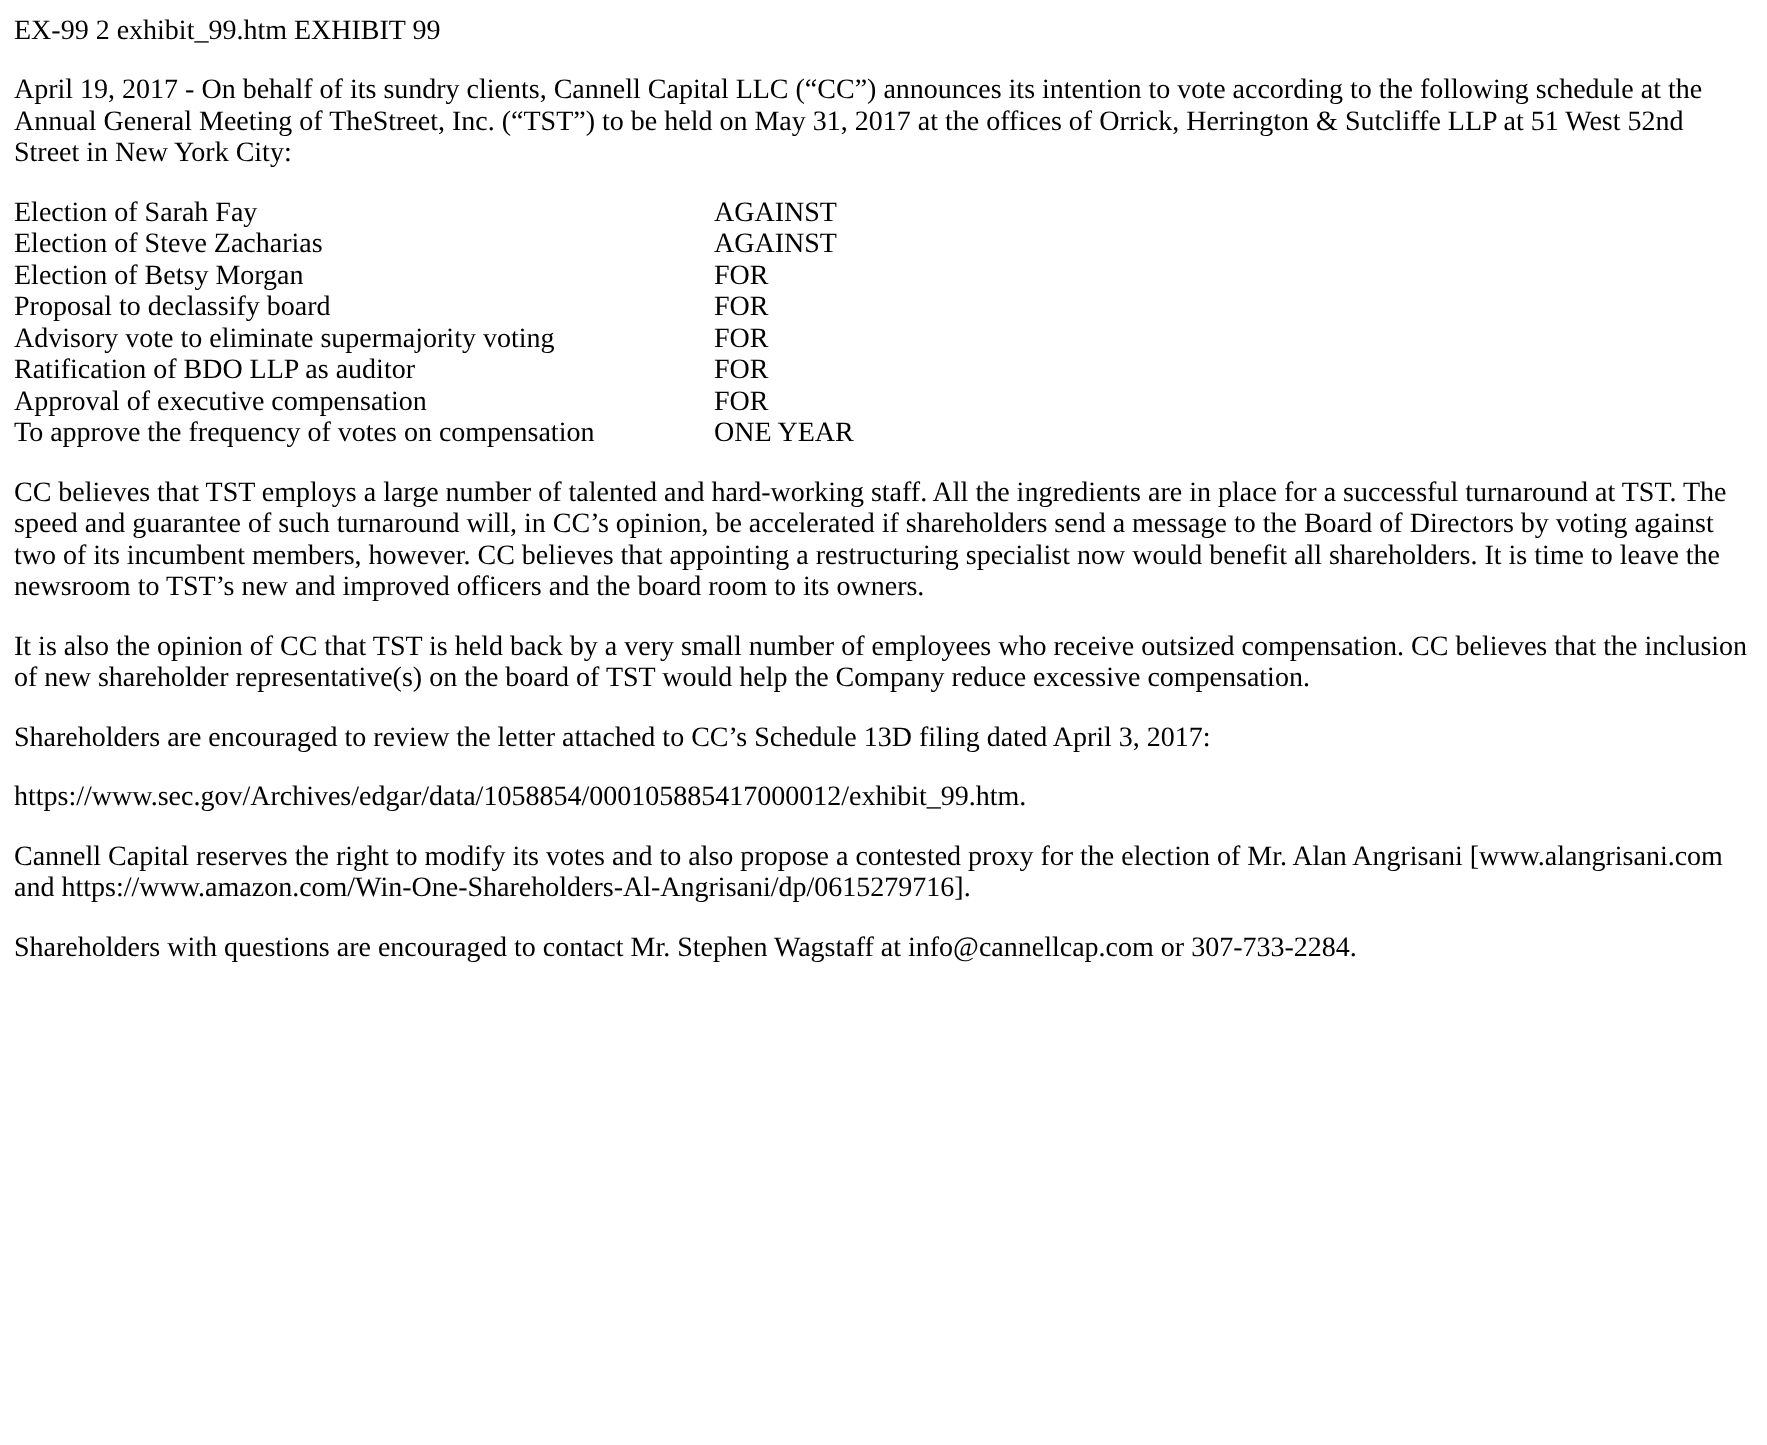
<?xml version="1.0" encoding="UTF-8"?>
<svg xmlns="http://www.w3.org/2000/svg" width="1767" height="1445">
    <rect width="100%" height="100%" fill="#FFFFFF"/>
    <text x="14" y="39" font-family="Liberation Serif" font-size="28" fill="#000000">EX-99 2 exhibit_99.htm EXHIBIT 99</text>
    <text font-family="Liberation Serif" font-size="28" fill="#000000">
        <tspan x="14" y="98">April 19, 2017 - On behalf of its sundry clients, Cannell Capital LLC (“CC”) announces its intention to vote according to the following schedule at the</tspan>
        <tspan x="14" y="130">Annual General Meeting of TheStreet, Inc. (“TST”) to be held on May 31, 2017 at the offices of Orrick, Herrington &amp; Sutcliffe LLP at 51 West 52nd</tspan>
        <tspan x="14" y="161">Street in New York City:</tspan>
    </text>
    <text x="14" y="221" font-family="Liberation Serif" font-size="28" fill="#000000">Election of Sarah Fay</text>
    <text x="714" y="221" font-family="Liberation Serif" font-size="28" fill="#000000">AGAINST</text>
    <text x="14" y="252" font-family="Liberation Serif" font-size="28" fill="#000000">Election of Steve Zacharias</text>
    <text x="714" y="252" font-family="Liberation Serif" font-size="28" fill="#000000">AGAINST</text>
    <text x="14" y="284" font-family="Liberation Serif" font-size="28" fill="#000000">Election of Betsy Morgan</text>
    <text x="714" y="284" font-family="Liberation Serif" font-size="28" fill="#000000">FOR</text>
    <text x="14" y="315" font-family="Liberation Serif" font-size="28" fill="#000000">Proposal to declassify board</text>
    <text x="714" y="315" font-family="Liberation Serif" font-size="28" fill="#000000">FOR</text>
    <text x="14" y="347" font-family="Liberation Serif" font-size="28" fill="#000000">Advisory vote to eliminate supermajority voting</text>
    <text x="714" y="347" font-family="Liberation Serif" font-size="28" fill="#000000">FOR</text>
    <text x="14" y="378" font-family="Liberation Serif" font-size="28" fill="#000000">Ratification of BDO LLP as auditor</text>
    <text x="714" y="378" font-family="Liberation Serif" font-size="28" fill="#000000">FOR</text>
    <text x="14" y="410" font-family="Liberation Serif" font-size="28" fill="#000000">Approval of executive compensation</text>
    <text x="714" y="410" font-family="Liberation Serif" font-size="28" fill="#000000">FOR</text>
    <text x="14" y="441" font-family="Liberation Serif" font-size="28" fill="#000000">To approve the frequency of votes on compensation</text>
    <text x="714" y="441" font-family="Liberation Serif" font-size="28" fill="#000000">ONE YEAR</text>
    <text x="14" y="501" font-family="Liberation Serif" font-size="28" fill="#000000">CC believes that TST employs a large number of talented and hard-working staff. All the ingredients are in place for a successful turnaround at TST.</text>
    <text x="1683" y="501" font-family="Liberation Serif" font-size="28" fill="#000000">The</text>
    <text font-family="Liberation Serif" font-size="28" fill="#000000">
        <tspan x="14" y="532">speed and guarantee of such turnaround will, in CC’s opinion, be accelerated if shareholders send a message to the Board of Directors by voting against</tspan>
        <tspan x="14" y="564">two of its incumbent members, however. CC believes that appointing a restructuring specialist now would benefit all shareholders. It is time to leave the</tspan>
        <tspan x="14" y="595">newsroom to TST’s new and improved officers and the board room to its owners.</tspan>
    </text>
    <text font-family="Liberation Serif" font-size="28" fill="#000000">
        <tspan x="14" y="655">It is also the opinion of CC that TST is held back by a very small number of employees who receive outsized compensation. CC believes that the inclusion</tspan>
        <tspan x="14" y="686">of new shareholder representative(s) on the board of TST would help the Company reduce excessive compensation.</tspan>
    </text>
    <text x="14" y="746" font-family="Liberation Serif" font-size="28" fill="#000000">Shareholders are encouraged to review the letter attached to CC’s Schedule 13D filing dated April 3, 2017:</text>
    <text x="14" y="805" font-family="Liberation Serif" font-size="28" fill="#000000">https://www.sec.gov/Archives/edgar/data/1058854/000105885417000012/exhibit_99.htm.</text>
    <text font-family="Liberation Serif" font-size="28" fill="#000000">
        <tspan x="14" y="865">Cannell Capital reserves the right to modify its votes and to also propose a contested proxy for the election of Mr. Alan Angrisani [www.alangrisani.com</tspan>
        <tspan x="14" y="896">and https://www.amazon.com/Win-One-Shareholders-Al-Angrisani/dp/0615279716].</tspan>
    </text>
    <text x="14" y="956" font-family="Liberation Serif" font-size="28" fill="#000000">Shareholders with questions are encouraged to contact Mr. Stephen Wagstaff at info@cannellcap.com or 307-733-2284.</text>
</svg>
